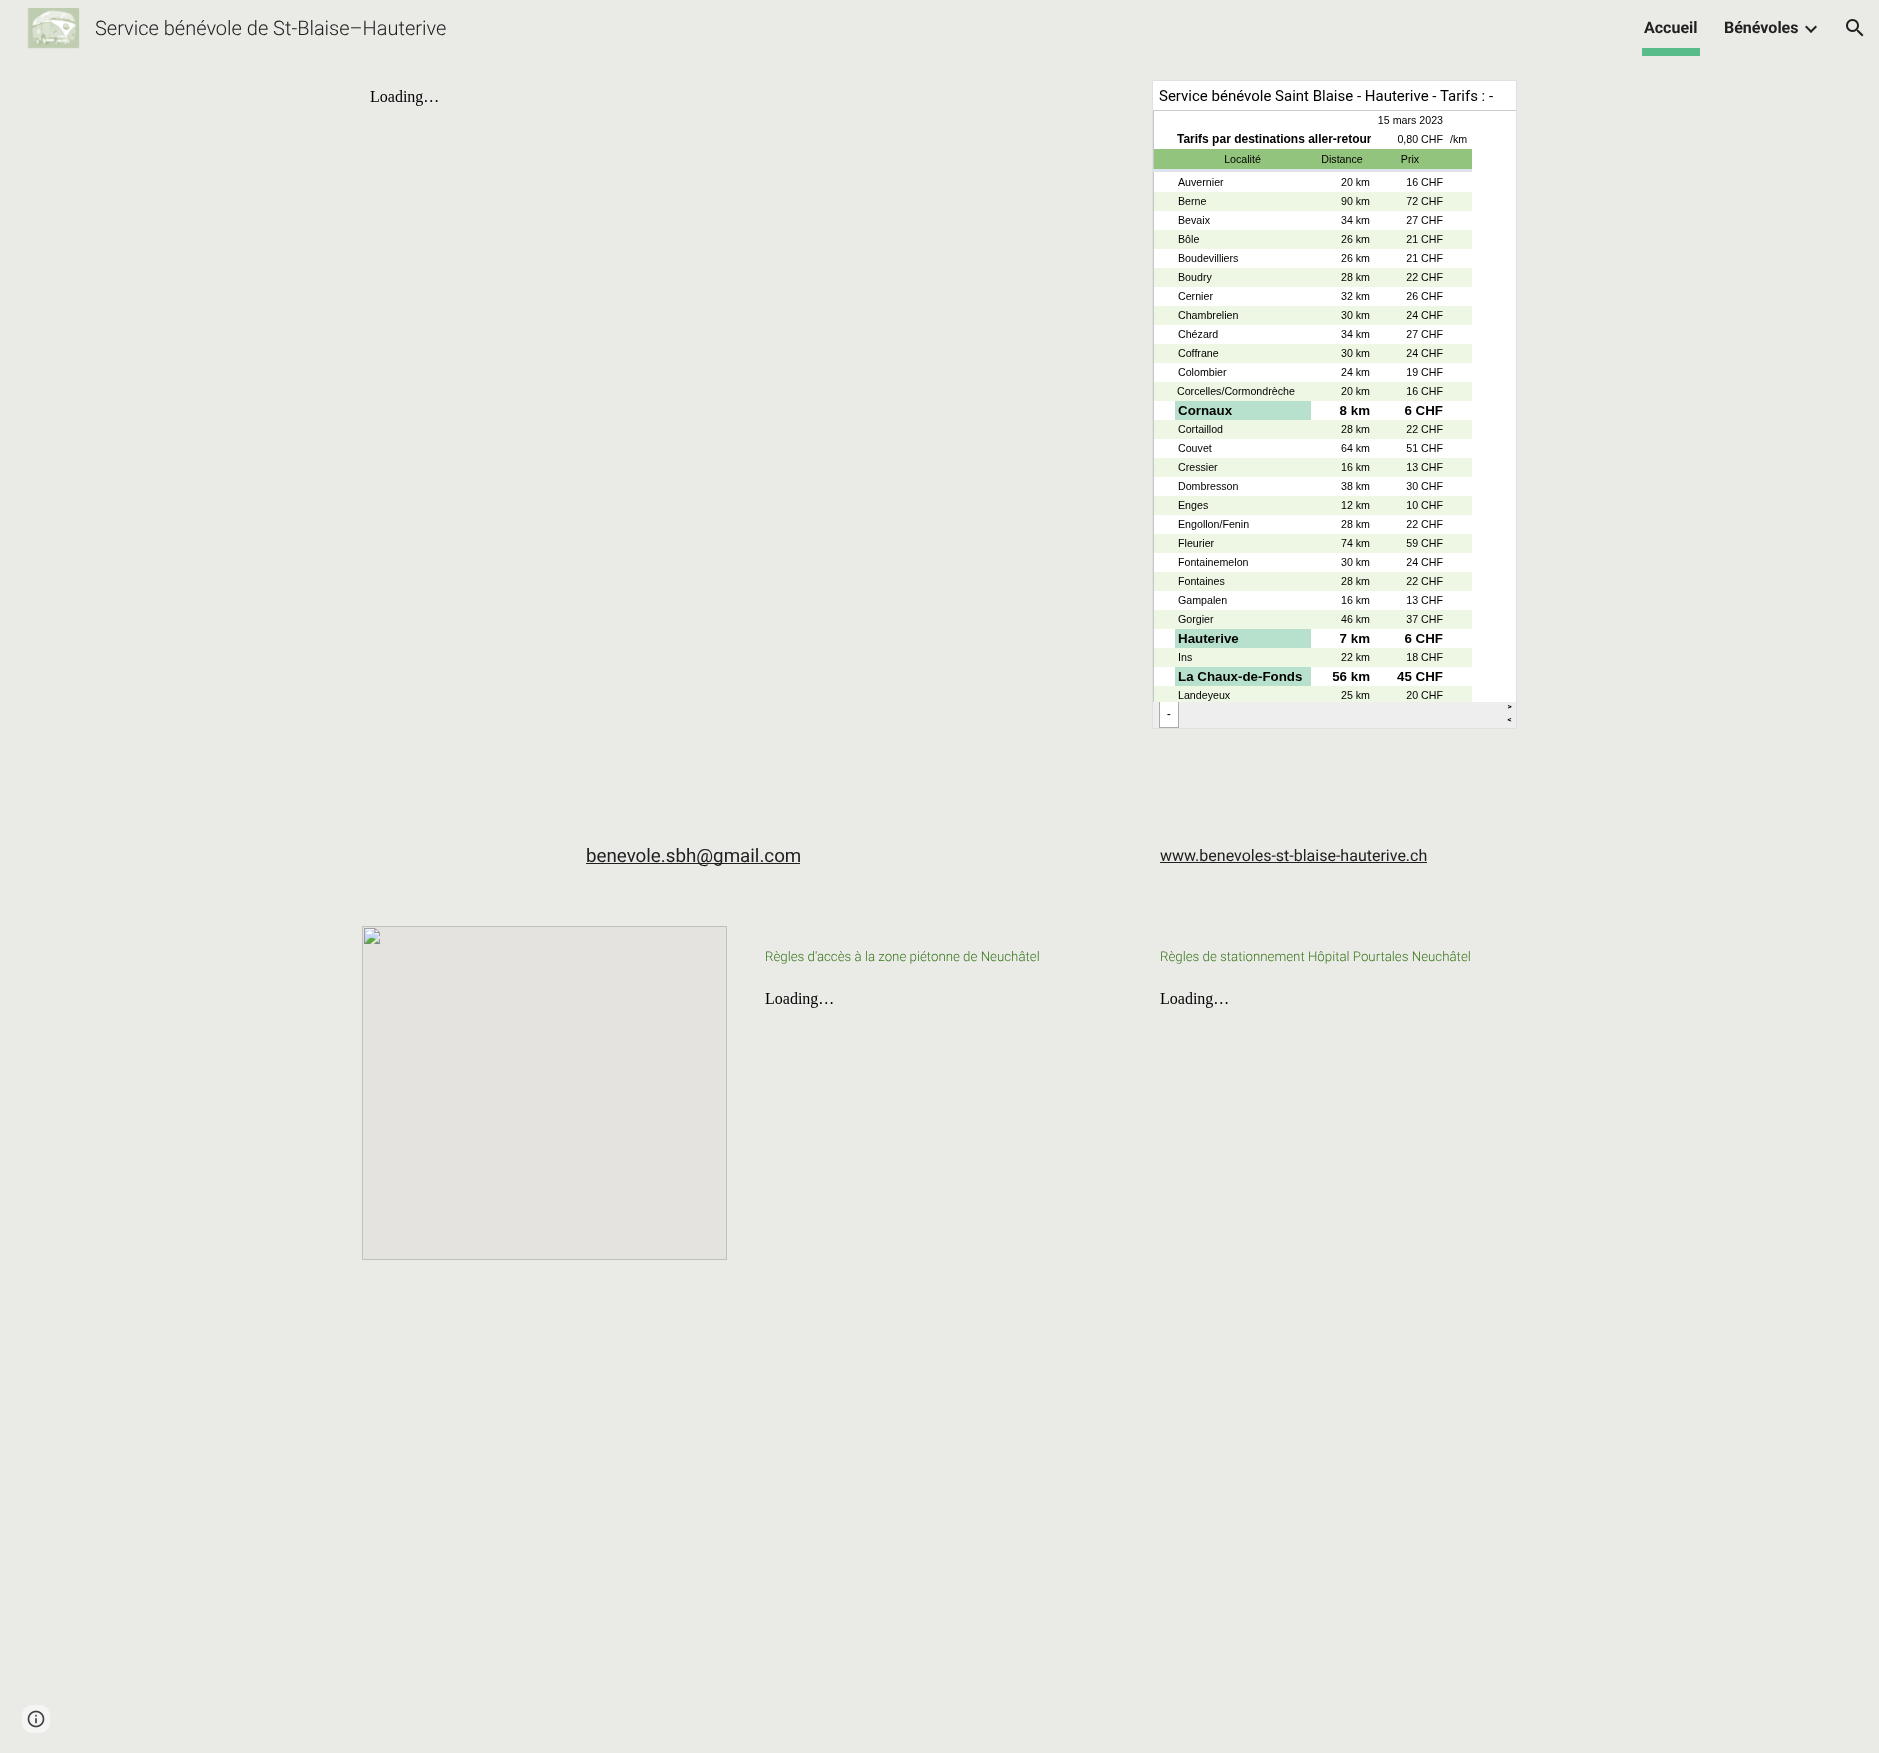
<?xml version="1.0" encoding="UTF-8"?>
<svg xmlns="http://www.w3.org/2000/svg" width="1879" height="1753">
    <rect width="100%" height="100%" fill="#EAEBE6"/>
    <image x="27" y="8" width="53" height="41" href="img_01.png"/>
    <text x="95" y="35" font-family="Roboto" font-size="20" font-weight="300" fill="#212121">Service bénévole de St-Blaise–Hauterive</text>
    <rect x="1642" y="48" width="58" height="8" fill="#57BB8A"/>
    <text x="1644" y="33" font-family="Roboto" font-size="16" font-weight="700" fill="#212121">Accueil</text>
    <text x="1724" y="33" font-family="Roboto" font-size="16" font-weight="700" fill="#212121">Bénévoles</text>
    <image x="1805" y="25" width="12" height="8" href="img_02.png"/>
    <image x="1846" y="19" width="18" height="18" href="img_03.png"/>
    <image x="370" y="90" width="68" height="16" href="img_04.png"/>
    <rect x="1152.5" y="80.5" width="364" height="648" rx="1.5" fill="none" stroke="#E0E0E0"/>
    <image x="1153" y="81" width="363" height="647" href="img_05.png"/>
    <rect x="586" y="863" width="214" height="1" fill="#212121"/>
    <text x="586" y="862" font-family="Roboto" font-size="18.75" fill="#212121">benevole.sbh@gmail.com</text>
    <text x="1160" y="861" font-family="Roboto" font-size="16" fill="#212121">www.benevoles-st-blaise-hauterive.ch</text>
    <rect x="1160" y="862" width="267" height="1" fill="#212121"/>
    <image x="362" y="926" width="365" height="334" href="img_06.png"/>
    <text x="765" y="961" font-family="Roboto" font-size="13.3" font-weight="300" fill="#38761D">Règles d'accès à la zone piétonne de Neuchâtel</text>
    <image x="765" y="992" width="68" height="16" href="img_04.png"/>
    <text x="1160" y="961" font-family="Roboto" font-size="13.3" font-weight="300" fill="#38761D">Règles de stationnement Hôpital Pourtales Neuchâtel</text>
    <image x="1160" y="992" width="68" height="16" href="img_04.png"/>
    <rect x="22" y="1705" width="28" height="28" rx="10" fill="#F5F5F3"/>
    <image x="27" y="1710" width="18" height="18" href="img_07.png"/>
</svg>
